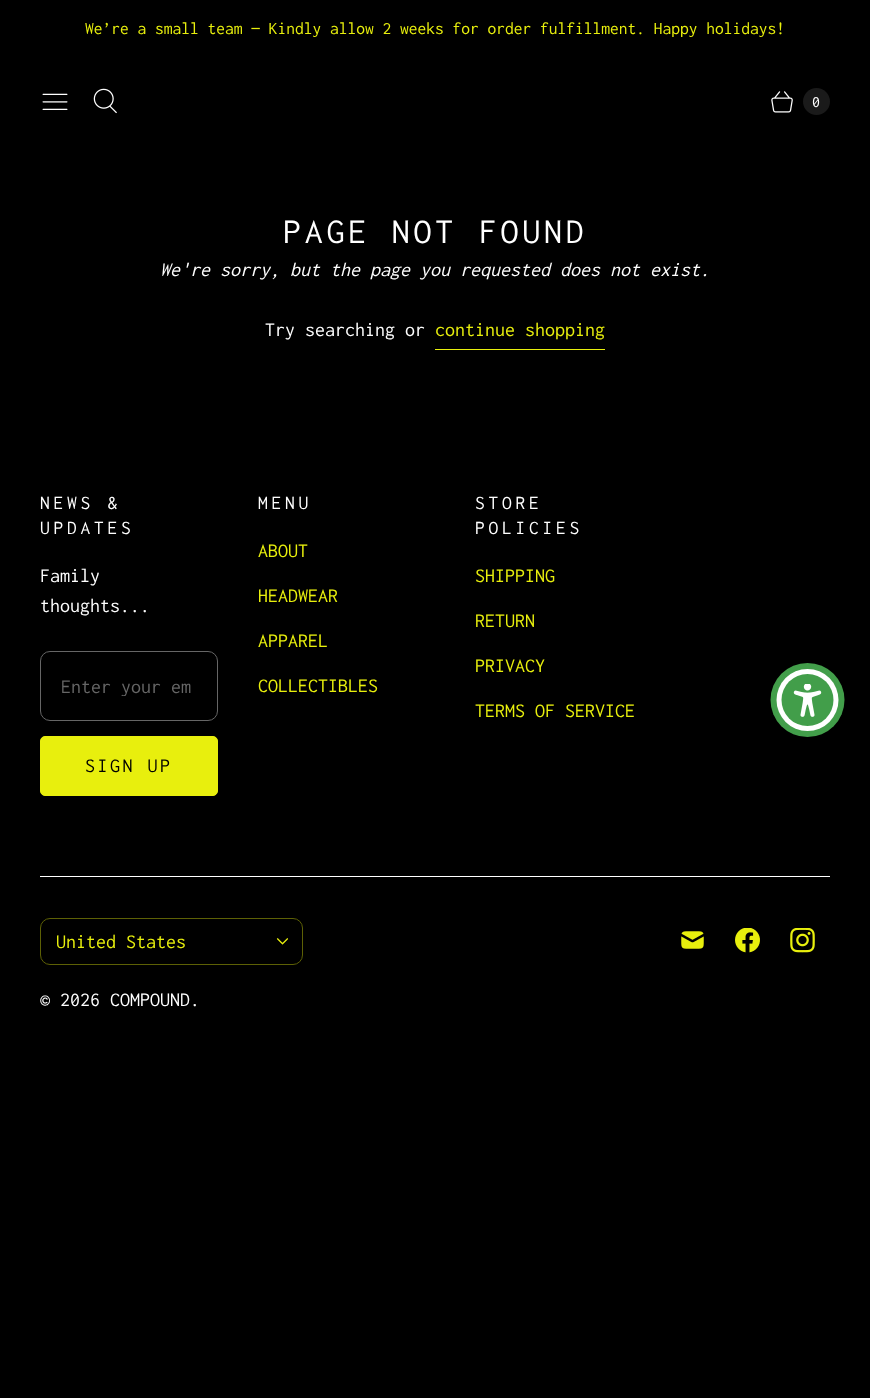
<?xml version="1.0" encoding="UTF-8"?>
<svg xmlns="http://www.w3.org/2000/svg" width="870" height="1398">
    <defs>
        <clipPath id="clip1"><rect x="61" y="675" width="135" height="21"/></clipPath>
    </defs>
    <rect width="100%" height="100%" fill="#000000"/>
    <text x="85" y="34" font-family="Inconsolata" font-size="17.5" fill="#E8EF0D">We’re a small team — Kindly allow 2 weeks for order fulfillment. Happy holidays!</text>
    <image x="42" y="93" width="26" height="17" href="img_01.png"/>
    <image x="93" y="88" width="24" height="26" href="img_02.png"/>
    <image x="771" y="91" width="22" height="22" href="img_03.png"/>
    <circle cx="816.5" cy="101.5" r="13.5" fill="#1A1A1A"/>
    <text x="812" y="107" font-family="Inconsolata" font-size="16" fill="#FFFFFF">0</text>
    <text x="283" y="243" font-family="Inconsolata" font-size="36" letter-spacing="3.75" fill="#FFFFFF">PAGE NOT FOUND</text>
    <text x="160" y="276" font-family="Inconsolata" font-size="20" font-style="italic" fill="#FFFFFF">We're sorry, but the page you requested does not exist.</text>
    <text x="265" y="336" font-family="Inconsolata" font-size="20" fill="#FFFFFF">Try searching or</text>
    <text x="435" y="336" font-family="Inconsolata" font-size="20" fill="#E8EF0D">continue shopping</text>
    <rect x="435" y="349" width="170" height="1" fill="#E8EF0D"/>
    <text font-family="Inconsolata" font-size="19.5" letter-spacing="3.75" fill="#FFFFFF">
        <tspan x="40" y="509">NEWS &amp;</tspan>
        <tspan x="40" y="534">UPDATES</tspan>
    </text>
    <text font-family="Inconsolata" font-size="20" fill="#FFFFFF">
        <tspan x="40" y="582">Family</tspan>
        <tspan x="40" y="612">thoughts...</tspan>
    </text>
    <rect x="40.5" y="651.5" width="177" height="69" rx="9.5" fill="none" stroke="#666666"/>
    <g clip-path="url(#clip1)">
        <text x="61" y="693" font-family="Inconsolata" font-size="20" fill="#666666">Enter your em</text>
    </g>
    <rect x="40.5" y="736.5" width="177" height="59" rx="4.5" fill="#E8EF0D" stroke="#E8EF0D"/>
    <text x="85" y="772" font-family="Inconsolata" font-size="20" letter-spacing="2.5" fill="#000000">SIGN UP</text>
    <text x="258" y="509" font-family="Inconsolata" font-size="19.5" letter-spacing="3.75" fill="#FFFFFF">MENU</text>
    <text x="258" y="557" font-family="Inconsolata" font-size="20" fill="#E8EF0D">ABOUT</text>
    <text x="258" y="602" font-family="Inconsolata" font-size="20" fill="#E8EF0D">HEADWEAR</text>
    <text x="258" y="647" font-family="Inconsolata" font-size="20" fill="#E8EF0D">APPAREL</text>
    <text x="258" y="692" font-family="Inconsolata" font-size="20" fill="#E8EF0D">COLLECTIBLES</text>
    <text font-family="Inconsolata" font-size="19.5" letter-spacing="3.75" fill="#FFFFFF">
        <tspan x="475" y="509">STORE</tspan>
        <tspan x="475" y="534">POLICIES</tspan>
    </text>
    <text x="475" y="582" font-family="Inconsolata" font-size="20" fill="#E8EF0D">SHIPPING</text>
    <text x="475" y="627" font-family="Inconsolata" font-size="20" fill="#E8EF0D">RETURN</text>
    <text x="475" y="672" font-family="Inconsolata" font-size="20" fill="#E8EF0D">PRIVACY</text>
    <text x="475" y="717" font-family="Inconsolata" font-size="20" fill="#E8EF0D">TERMS OF SERVICE</text>
    <rect x="40" y="876" width="790" height="1" fill="#FFFFFF"/>
    <rect x="40.5" y="918.5" width="262" height="46" rx="9.5" fill="none" stroke="#5D6005"/>
    <text x="56" y="948" font-family="Inconsolata" font-size="20" fill="#E8EF0D">United States</text>
    <image x="276" y="938" width="12" height="7" href="img_04.png"/>
    <text x="40" y="1006" font-family="Inconsolata" font-size="20" fill="#FFFFFF">© 2026 COMPOUND.</text>
    <image x="681" y="931" width="23" height="18" href="img_05.png"/>
    <image x="735" y="928" width="25" height="25" href="img_06.png"/>
    <image x="790" y="928" width="25" height="25" href="img_07.png"/>
    <circle cx="807.5" cy="700" r="37" fill="#429E4A"/>
    <circle cx="807.5" cy="700" r="31" fill="#FFFFFF"/>
    <circle cx="807.5" cy="700" r="26" fill="#429E4A"/>
    <image x="793" y="684" width="29" height="33" href="img_08.png"/>
</svg>
